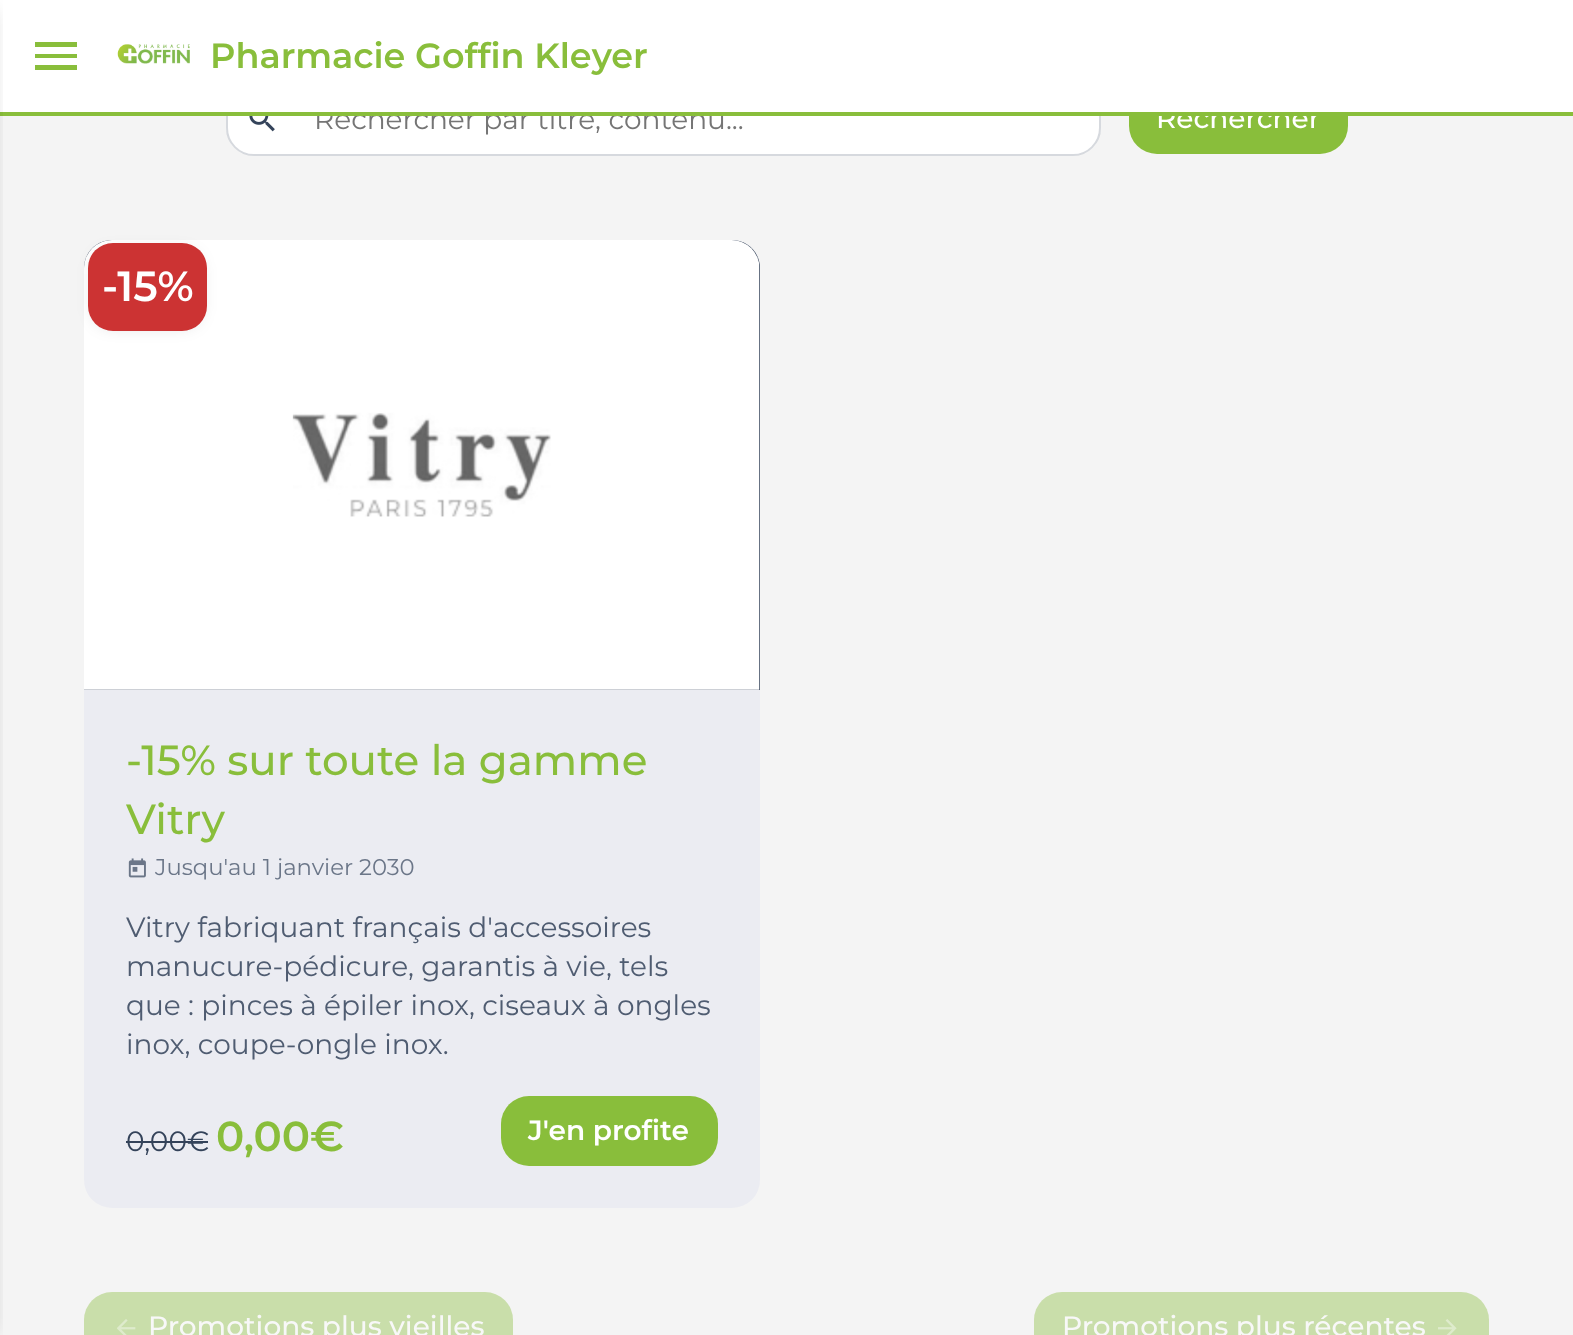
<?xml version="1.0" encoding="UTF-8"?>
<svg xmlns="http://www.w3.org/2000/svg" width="1573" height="1335">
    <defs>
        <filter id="blur1" x="-50%" y="-200%" width="200%" height="500%"><feGaussianBlur stdDeviation="9"/></filter>
    </defs>
    <rect width="100%" height="100%" fill="#F4F4F4"/>
    <rect x="226" y="82" width="875" height="74" rx="28" fill="#FFFFFF"/>
    <rect x="227" y="83" width="873" height="72" rx="27" fill="none" stroke="#34435A" stroke-opacity="0.2" stroke-width="2"/>
    <text x="314" y="129" font-family="Montserrat" font-size="28" fill="#757575">Rechercher par titre, contenu...</text>
    <rect x="1129" y="84" width="219" height="70" rx="28" fill="#89BE3B"/>
    <rect x="0" y="0" width="1573" height="112" fill="#FFFFFF"/>
    <text x="1156" y="128" font-family="Montserrat" font-size="28" font-weight="500" fill="#FFFFFF">Rechercher</text>
    <rect x="0" y="112" width="1573" height="4" fill="#89BE3B"/>
    <rect x="-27" y="11" width="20" height="1321" fill="#000000" fill-opacity="0.2" filter="url(#blur1)"/>
    <path d="M 35 42 H 77 V 47 H 35 Z M 35 58 V 54 H 77 V 58 Z M 35 70 V 65 H 77 V 70 Z" fill="#89BE3B"/>
    <image x="117" y="44" width="73" height="20" href="img_01.png"/>
    <text x="210" y="68" font-family="Montserrat" font-size="35" font-weight="600" fill="#89BE3B">Pharmacie Goffin Kleyer</text>
    <image x="249" y="116" width="26" height="16" href="img_02.png"/>
    <rect x="84" y="240" width="676" height="968" rx="28" fill="#EBECF2"/>
    <path d="M 112 240 H 732 C 747.5 240 760 252.5 760 268 V 690 H 84 V 268 C 84 252.5 96.5 240 112 240 Z" fill="#34435A"/>
    <image x="84" y="240" width="676" height="450" href="img_03.png"/>
    <rect x="96" y="254" width="102" height="70" rx="16" fill="#000000" fill-opacity="0.2" filter="url(#blur1)"/>
    <rect x="88" y="243" width="119" height="88" rx="25" fill="#CC3333"/>
    <text x="102" y="301" font-family="Montserrat" font-size="42" font-weight="600" fill="#FFFFFF">-15%</text>
    <text font-family="Montserrat" font-size="42" font-weight="500" fill="#89BE3B">
        <tspan x="126" y="775">-15% sur toute la gamme</tspan>
        <tspan x="126" y="834">Vitry</tspan>
    </text>
    <image x="128" y="858" width="18" height="20" href="img_04.png"/>
    <text x="155" y="875" font-family="Montserrat" font-size="22.75" fill="#6B7688">Jusqu'au 1 janvier 2030</text>
    <text font-family="Montserrat" font-size="28" fill="#4F5C71">
        <tspan x="126" y="937">Vitry fabriquant français d'accessoires</tspan>
        <tspan x="126" y="976">manucure-pédicure, garantis à vie, tels</tspan>
        <tspan x="126" y="1015">que : pinces à épiler inox, ciseaux à ongles</tspan>
        <tspan x="126" y="1054">inox, coupe-ongle inox.</tspan>
    </text>
    <text x="126" y="1151" font-family="Montserrat" font-size="28" fill="#34435A">0,00€</text>
    <rect x="126" y="1141" width="82" height="2" fill="#34435A"/>
    <text x="216" y="1151" font-family="Montserrat" font-size="42" font-weight="600" fill="#89BE3B">0,00€</text>
    <rect x="501" y="1096" width="217" height="70" rx="28" fill="#89BE3B"/>
    <text x="528" y="1140" font-family="Montserrat" font-size="28" font-weight="600" fill="#FFFFFF">J'en profite</text>
    <rect x="84" y="1292" width="429" height="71" rx="28" fill="#C9DEAA"/>
    <image x="117" y="1319" width="19" height="16" href="img_05.png"/>
    <text x="148" y="1336" font-family="Montserrat" font-size="28" font-weight="500" fill="#F8F8F8">Promotions plus vieilles</text>
    <rect x="1034" y="1292" width="455" height="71" rx="28" fill="#C9DEAA"/>
    <text x="1062" y="1336" font-family="Montserrat" font-size="28" font-weight="500" fill="#F8F8F8">Promotions plus récentes</text>
    <image x="1438" y="1319" width="19" height="16" href="img_06.png"/>
</svg>
